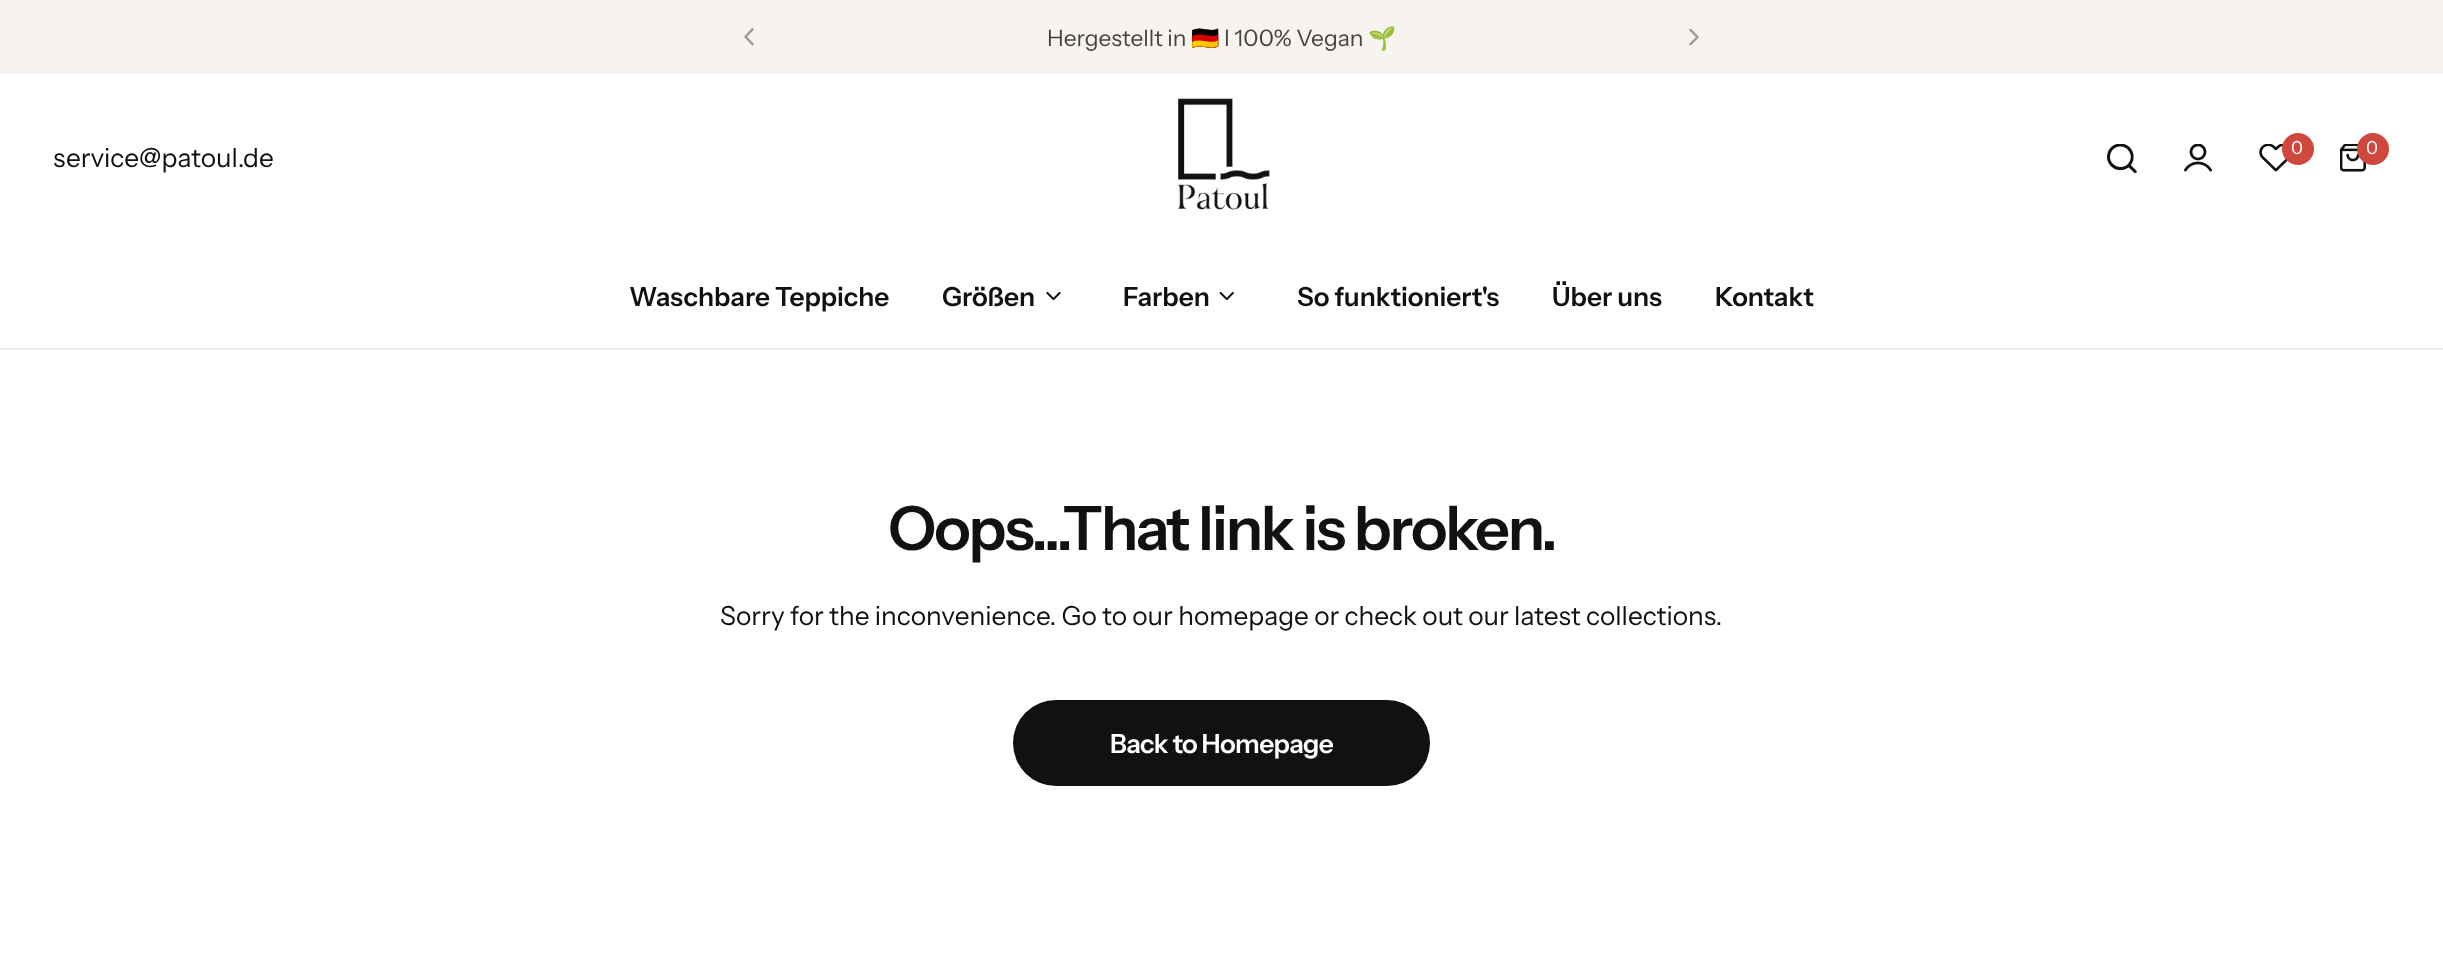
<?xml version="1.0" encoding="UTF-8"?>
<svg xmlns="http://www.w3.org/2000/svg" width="2443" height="960">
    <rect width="100%" height="100%" fill="#FFFFFF"/>
    <rect x="0" y="0" width="2443" height="74" fill="#F7F3EF"/>
    <image x="744" y="28" width="10" height="18" href="img_01.png"/>
    <text x="1047" y="46" font-family="Instrument Sans" font-size="22.75" fill="#444444">Hergestellt in</text>
    <text x="1191" y="46" font-family="Noto Color Emoji" font-size="22.75" fill="#444444">🇩🇪</text>
    <text x="1224" y="46" font-family="Instrument Sans" font-size="22.75" fill="#444444">I 100% Vegan</text>
    <text x="1368" y="46" font-family="Noto Color Emoji" font-size="22.75" fill="#444444">🌱</text>
    <image x="1689" y="28" width="10" height="18" href="img_02.png"/>
    <rect x="0" y="348" width="2443" height="2" fill="#EBEBEB"/>
    <text x="53" y="167" font-family="Instrument Sans" font-size="26.25" fill="#111111">service@patoul.de</text>
    <image x="1177" y="98" width="93" height="112" href="img_03.png"/>
    <image x="2107" y="144" width="30" height="29" href="img_04.png"/>
    <image x="2184" y="144" width="28" height="28" href="img_05.png"/>
    <image x="2259" y="144" width="29" height="28" href="img_06.png"/>
    <circle cx="2298" cy="149" r="16" fill="#D0473E"/>
    <text x="2291" y="154" font-family="Instrument Sans" font-size="18" fill="#FFFFFF">0</text>
    <image x="2340" y="144" width="26" height="28" href="img_07.png"/>
    <circle cx="2373" cy="149" r="16" fill="#D0473E"/>
    <text x="2366" y="154" font-family="Instrument Sans" font-size="18" fill="#FFFFFF">0</text>
    <text x="629" y="306" font-family="Instrument Sans" font-size="26.25" font-weight="600" fill="#111111">Waschbare Teppiche</text>
    <text x="942" y="306" font-family="Instrument Sans" font-size="26.25" font-weight="600" fill="#111111">Größen</text>
    <image x="1046" y="292" width="15" height="9" href="img_08.png"/>
    <text x="1123" y="306" font-family="Instrument Sans" font-size="26.25" font-weight="600" fill="#111111">Farben</text>
    <image x="1219" y="292" width="15" height="9" href="img_09.png"/>
    <text x="1297" y="306" font-family="Instrument Sans" font-size="26.25" font-weight="600" fill="#111111">So funktioniert's</text>
    <text x="1552" y="306" font-family="Instrument Sans" font-size="26.25" font-weight="600" fill="#111111">Über uns</text>
    <text x="1715" y="306" font-family="Instrument Sans" font-size="26.25" font-weight="600" fill="#111111">Kontakt</text>
    <text x="888" y="550" font-family="Instrument Sans" font-size="61" font-weight="600" letter-spacing="-2.1" fill="#111111">Oops...That link is broken.</text>
    <text x="720" y="625" font-family="Instrument Sans" font-size="26.25" fill="#111111">Sorry for the inconvenience. Go to our homepage or check out our latest collections.</text>
    <rect x="1013" y="700" width="417" height="86" rx="43" fill="#111111"/>
    <text x="1110" y="753" font-family="Instrument Sans" font-size="26.25" font-weight="600" letter-spacing="-0.6" fill="#FFFFFF">Back to Homepage</text>
</svg>
